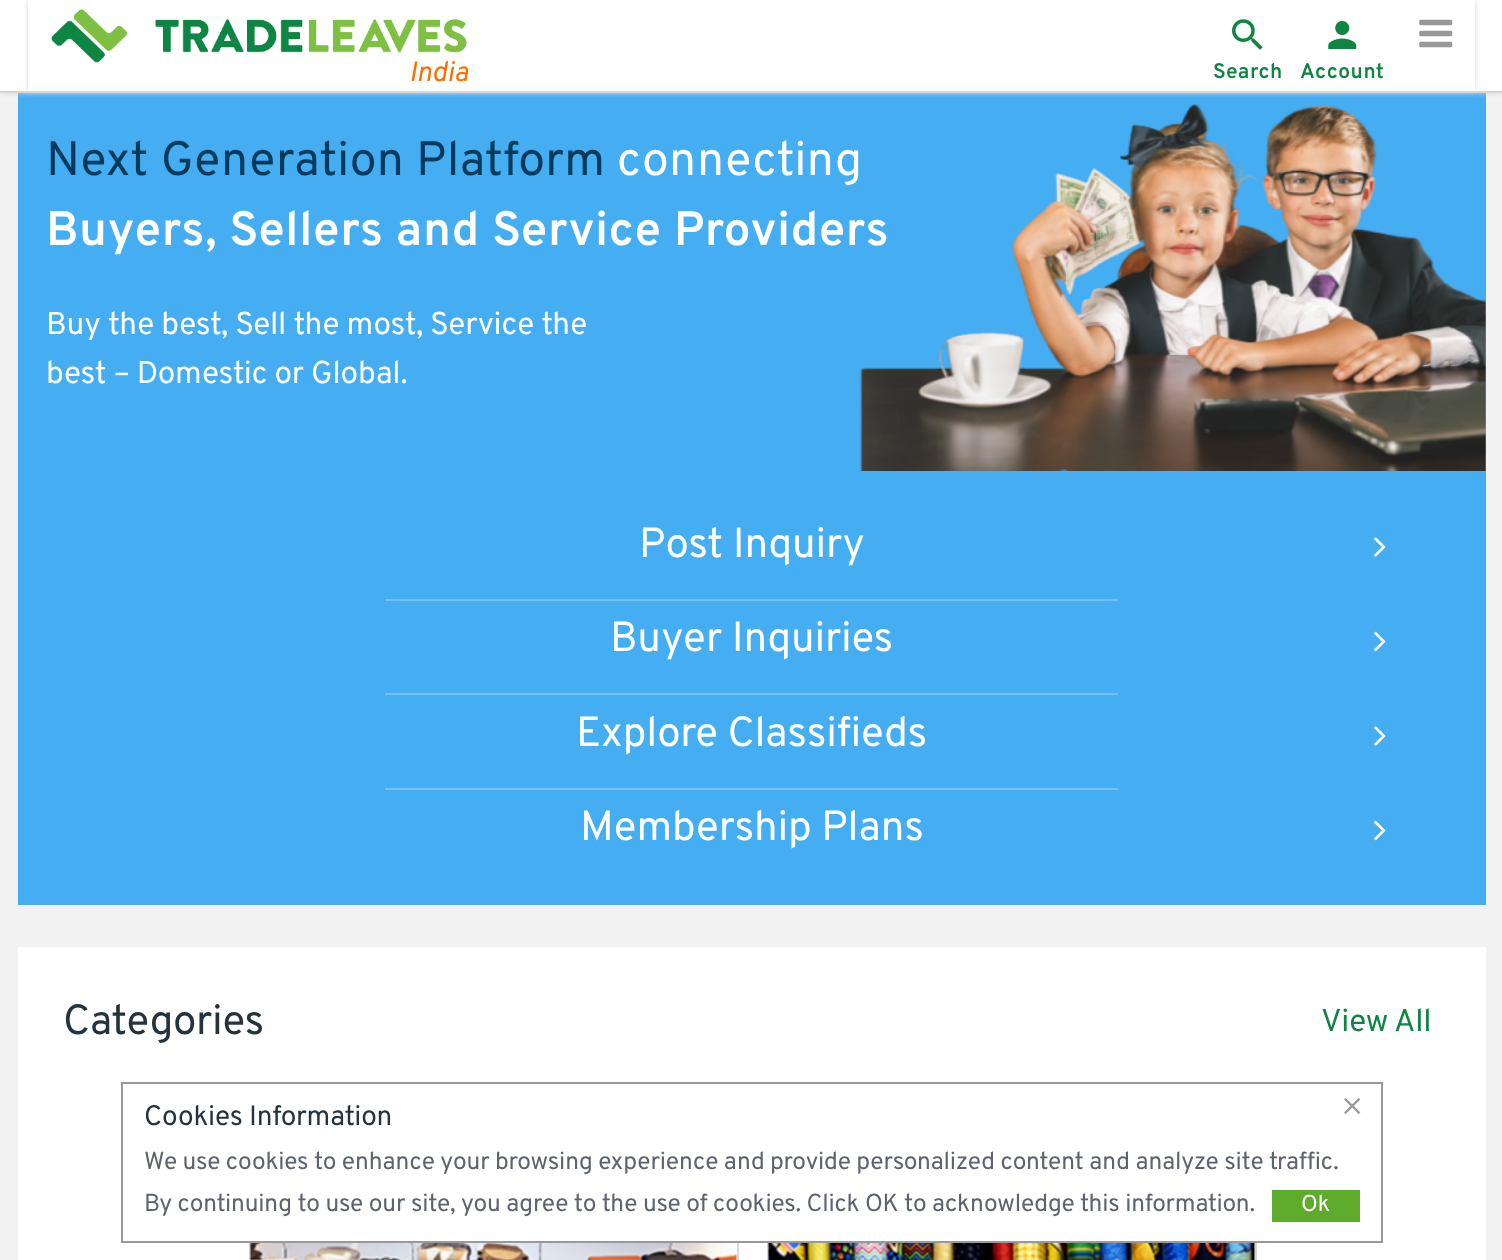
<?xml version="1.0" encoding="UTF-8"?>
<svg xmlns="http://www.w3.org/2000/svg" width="1502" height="1260">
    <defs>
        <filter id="blur1" x="-50%" y="-200%" width="200%" height="500%"><feGaussianBlur stdDeviation="2.5"/></filter>
    </defs>
    <rect width="100%" height="100%" fill="#F2F2F2"/>
    <rect x="18" y="93" width="1468" height="812" fill="#45ADF2"/>
    <rect x="0" y="0" width="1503" height="93" fill="#D4D6D8" filter="url(#blur1)"/>
    <rect x="0" y="0" width="1502" height="91" fill="#FFFFFF"/>
    <rect x="0" y="91" width="1502" height="2" fill="#D4D6D8"/>
    <rect x="28" y="0" width="1447" height="91" fill="#D4D6D8" filter="url(#blur1)"/>
    <rect x="28" y="0" width="1447" height="91" fill="#FFFFFF"/>
    <image x="1419" y="19" width="34" height="29" href="img_01.png"/>
    <text x="409" y="81" font-family="Overpass" font-size="28" font-style="italic" fill="#FF6C00">India</text>
    <image x="51" y="9" width="416" height="54" href="img_02.png"/>
    <image x="1232" y="19" width="31" height="31" href="img_03.png"/>
    <text x="1213" y="78" font-family="Overpass" font-size="21" font-weight="600" letter-spacing="0.5" fill="#0E8543">Search</text>
    <image x="1328" y="21" width="29" height="28" href="img_04.png"/>
    <text x="1300" y="78" font-family="Overpass" font-size="21" font-weight="600" letter-spacing="0.5" fill="#0E8543">Account</text>
    <image x="860" y="104" width="626" height="367" href="img_05.png"/>
    <text x="46" y="175" font-family="Overpass" font-size="48.1" letter-spacing="0.45" fill="#003A5B">Next Generation Platform</text>
    <text x="617" y="175" font-family="Overpass" font-size="48.1" letter-spacing="0.45" fill="#FFFFFF">connecting</text>
    <text x="46" y="245" font-family="Overpass" font-size="48.1" font-weight="600" letter-spacing="0.45" fill="#FFFFFF">Buyers, Sellers and Service Providers</text>
    <text font-family="Overpass" font-size="31.5" letter-spacing="-0.18" fill="#FFFFFF">
        <tspan x="46" y="334">Buy the best, Sell the most, Service the</tspan>
        <tspan x="46" y="383">best – Domestic or Global.</tspan>
    </text>
    <text x="639" y="557" font-family="Overpass" font-size="42" letter-spacing="-0.18" fill="#FFFFFF">Post Inquiry</text>
    <image x="1374" y="537" width="12" height="20" href="img_06.png"/>
    <rect x="385" y="599" width="733" height="2" fill="#77C1F2"/>
    <text x="610" y="651" font-family="Overpass" font-size="42" letter-spacing="-0.18" fill="#FFFFFF">Buyer Inquiries</text>
    <image x="1374" y="631" width="12" height="21" href="img_07.png"/>
    <rect x="385" y="693" width="733" height="2" fill="#77C1F2"/>
    <text x="576" y="746" font-family="Overpass" font-size="42" letter-spacing="-0.18" fill="#FFFFFF">Explore Classifieds</text>
    <image x="1374" y="726" width="12" height="20" href="img_06.png"/>
    <rect x="385" y="788" width="733" height="2" fill="#77C1F2"/>
    <text x="580" y="840" font-family="Overpass" font-size="42" letter-spacing="-0.18" fill="#FFFFFF">Membership Plans</text>
    <image x="1374" y="820" width="12" height="21" href="img_07.png"/>
    <rect x="18" y="947" width="1468" height="313" fill="#FFFFFF"/>
    <text x="63" y="1034" font-family="Overpass" font-size="42" letter-spacing="-0.18" fill="#25333C">Categories</text>
    <text x="1321" y="1031" font-family="Overpass" font-size="31.5" letter-spacing="-0.18" fill="#0E8543">View All</text>
    <rect x="250" y="1095" width="488" height="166" fill="none" stroke="#D4D6D8" stroke-width="2"/>
    <image x="249" y="1243" width="489" height="17" href="img_08.png"/>
    <rect x="768" y="1095" width="488" height="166" fill="none" stroke="#D4D6D8" stroke-width="2"/>
    <image x="767" y="1243" width="488" height="17" href="img_09.png"/>
    <rect x="249" y="1094" width="1008" height="147" fill="#FFFFFF"/>
    <rect x="122" y="1083" width="1260" height="159" fill="none" stroke="#999999" stroke-width="2"/>
    <text x="144" y="1125" font-family="Overpass" font-size="28" letter-spacing="-0.18" fill="#25333C">Cookies Information</text>
    <image x="1344" y="1098" width="17" height="16" href="img_10.png"/>
    <text font-family="Overpass" font-size="24.5" letter-spacing="-0.18" fill="#5D636F">
        <tspan x="144" y="1169">We use cookies to enhance your browsing experience and provide personalized content and analyze site traffic.</tspan>
        <tspan x="144" y="1211">By continuing to use our site, you agree to the use of cookies. Click OK to acknowledge this information.</tspan>
    </text>
    <rect x="1272" y="1190" width="88" height="32" fill="#5FAB2B"/>
    <text x="1301" y="1211" font-family="Overpass" font-size="23" fill="#FFFFFF">Ok</text>
</svg>
